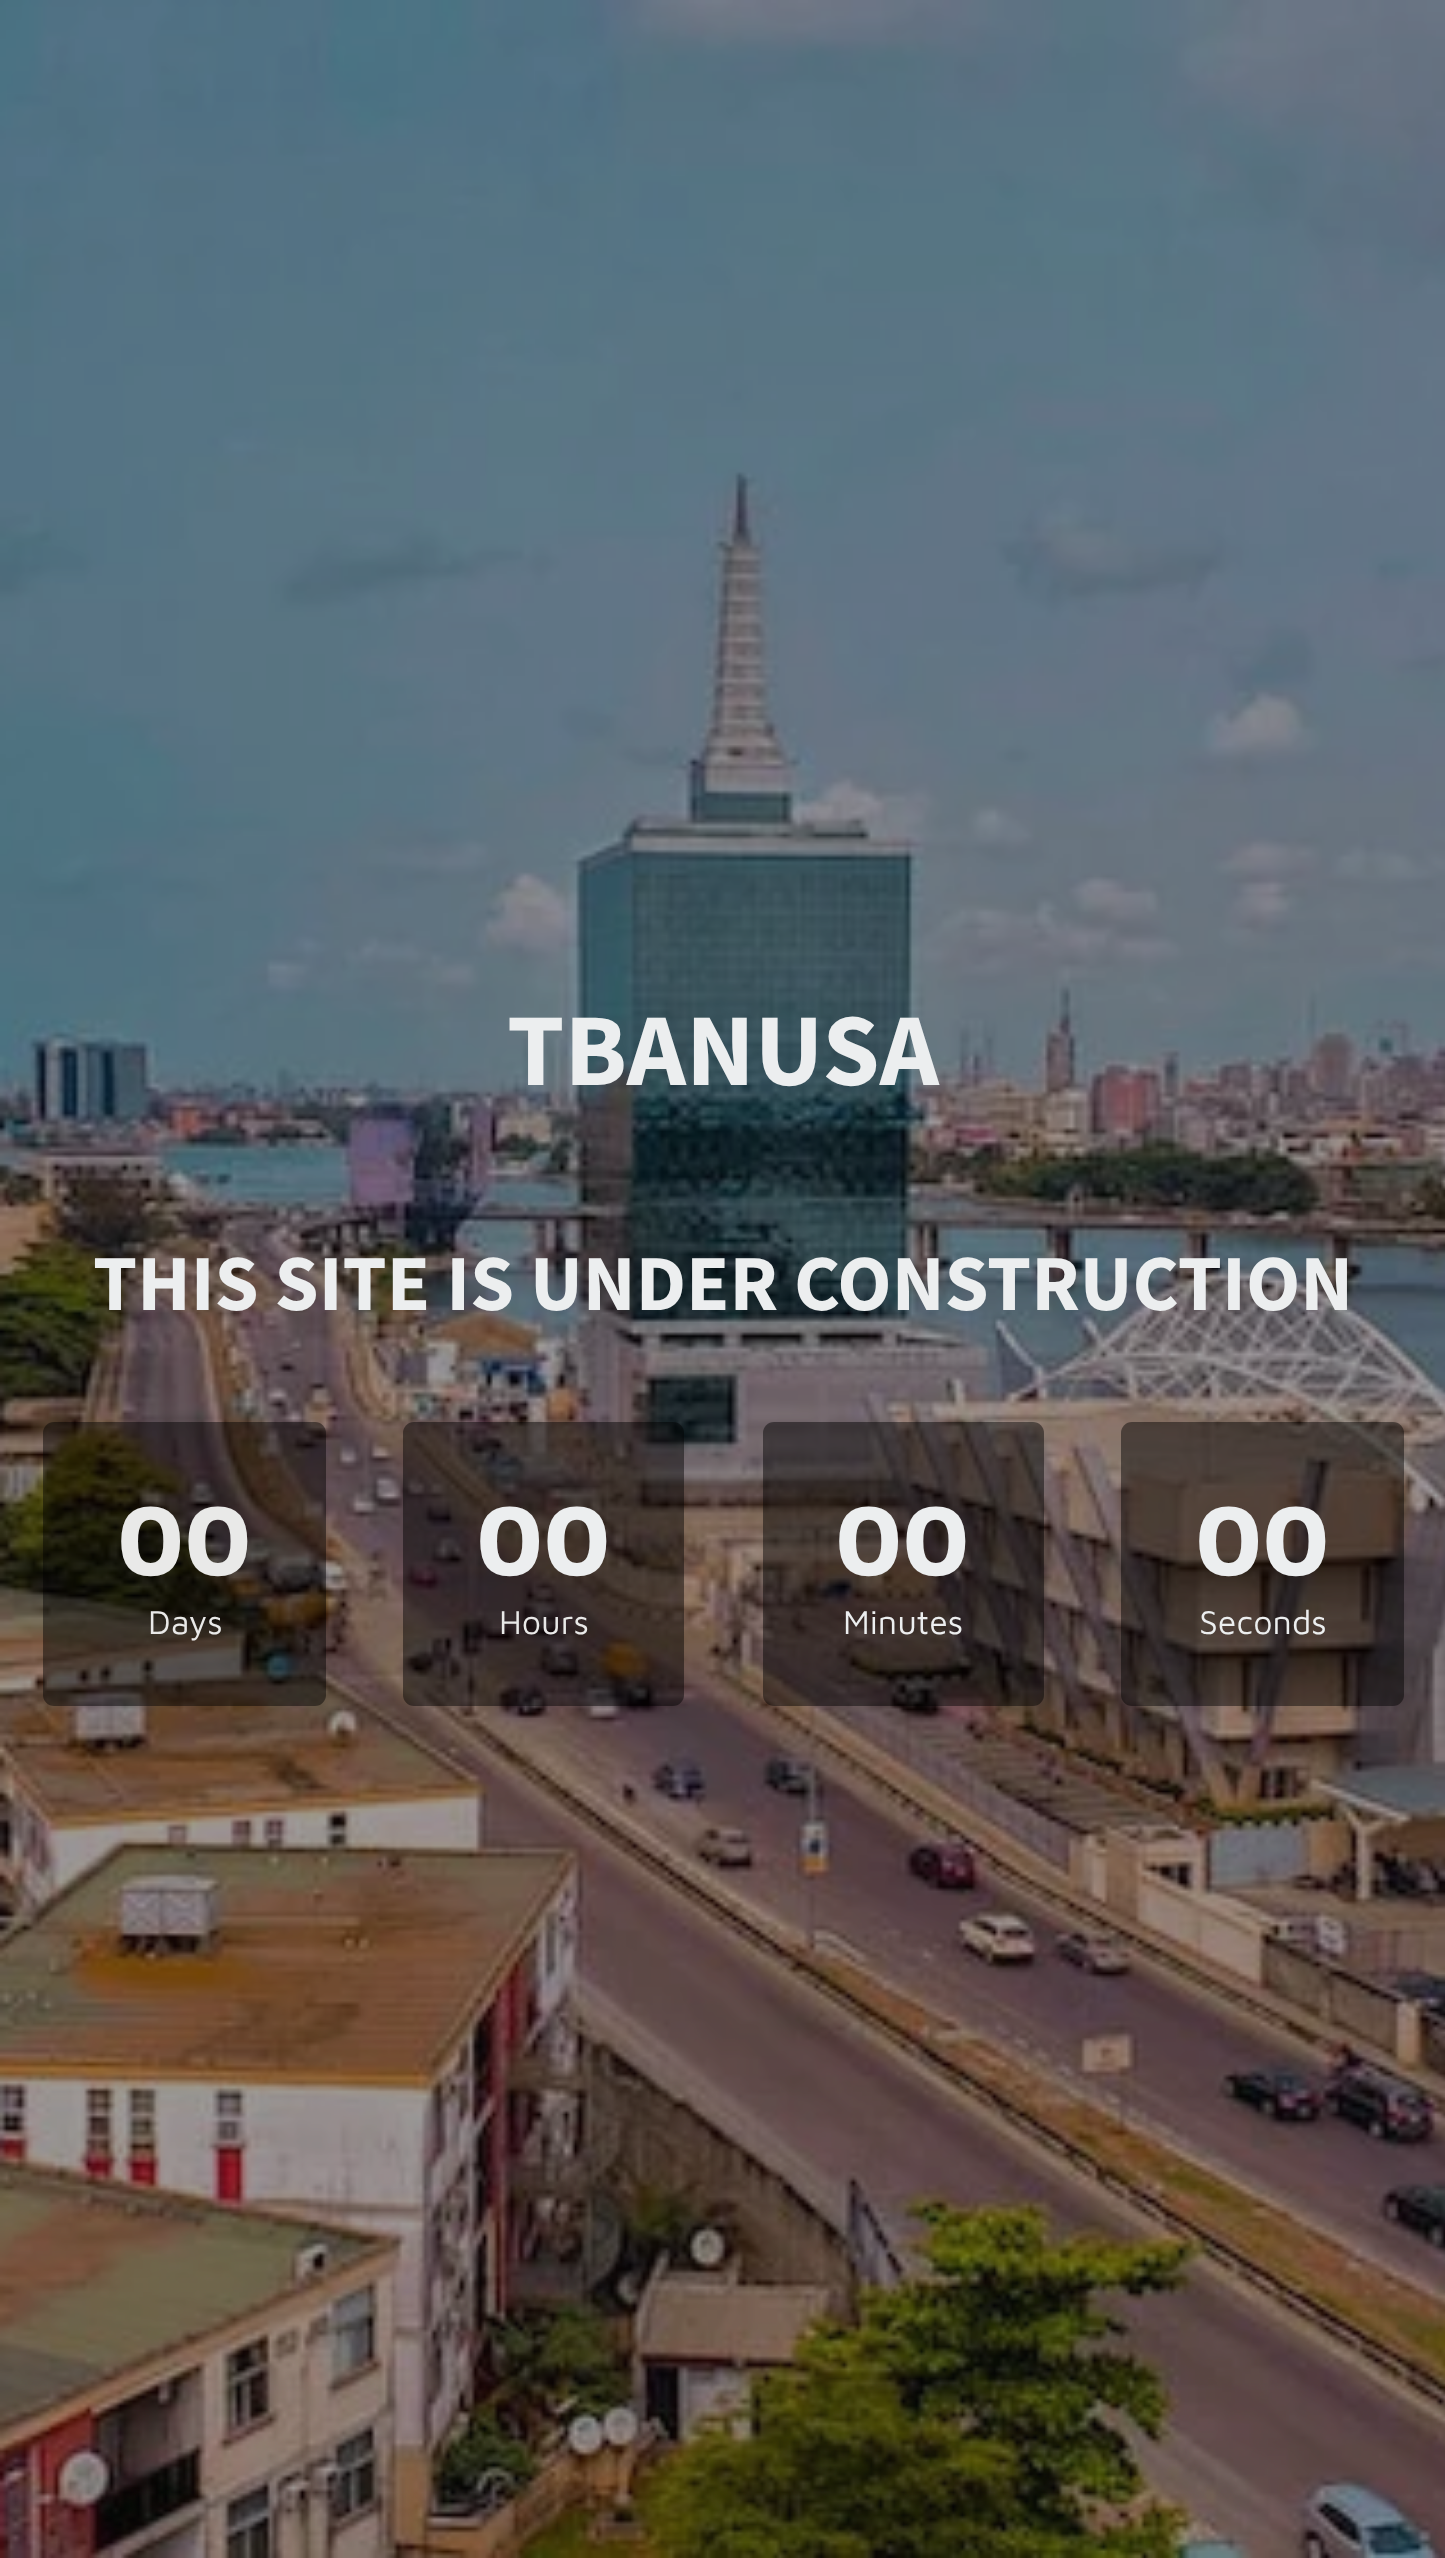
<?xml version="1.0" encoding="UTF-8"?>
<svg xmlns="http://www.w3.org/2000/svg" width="1445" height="2558">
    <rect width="100%" height="100%" fill="#FFFFFF"/>
    <image x="0" y="0" width="1445" height="2558" href="img_01.png"/>
    <text x="507" y="1085" font-family="Source Sans Pro" font-size="103.25" font-weight="700" fill="#ECEEEF">TBANUSA</text>
    <text x="93" y="1310" font-family="Source Sans Pro" font-size="79.4" font-weight="700" fill="#ECEEEF">THIS SITE IS UNDER CONSTRUCTION</text>
    <rect x="43" y="1422" width="283" height="284" rx="11" fill="#000000" fill-opacity="0.45"/>
    <text x="117" y="1575" font-family="Maven Pro" font-size="101" font-weight="700" fill="#E9E9E8">00</text>
    <text x="148" y="1634" font-family="Maven Pro" font-size="34" fill="#E9E9E8">Days</text>
    <rect x="403" y="1422" width="281" height="284" rx="11" fill="#000000" fill-opacity="0.45"/>
    <text x="476" y="1575" font-family="Maven Pro" font-size="101" font-weight="700" fill="#ECEEEF">00</text>
    <text x="499" y="1634" font-family="Maven Pro" font-size="34" fill="#E9E9E8">Hours</text>
    <rect x="763" y="1422" width="281" height="284" rx="11" fill="#000000" fill-opacity="0.45"/>
    <text x="835" y="1575" font-family="Maven Pro" font-size="101" font-weight="700" fill="#ECEEEF">00</text>
    <text x="843" y="1634" font-family="Maven Pro" font-size="34" fill="#ECEEEF">Minutes</text>
    <rect x="1121" y="1422" width="283" height="284" rx="11" fill="#000000" fill-opacity="0.45"/>
    <text x="1195" y="1575" font-family="Maven Pro" font-size="101" font-weight="700" fill="#ECEEEF">00</text>
    <text x="1199" y="1634" font-family="Maven Pro" font-size="34" fill="#ECEEEF">Seconds</text>
</svg>
